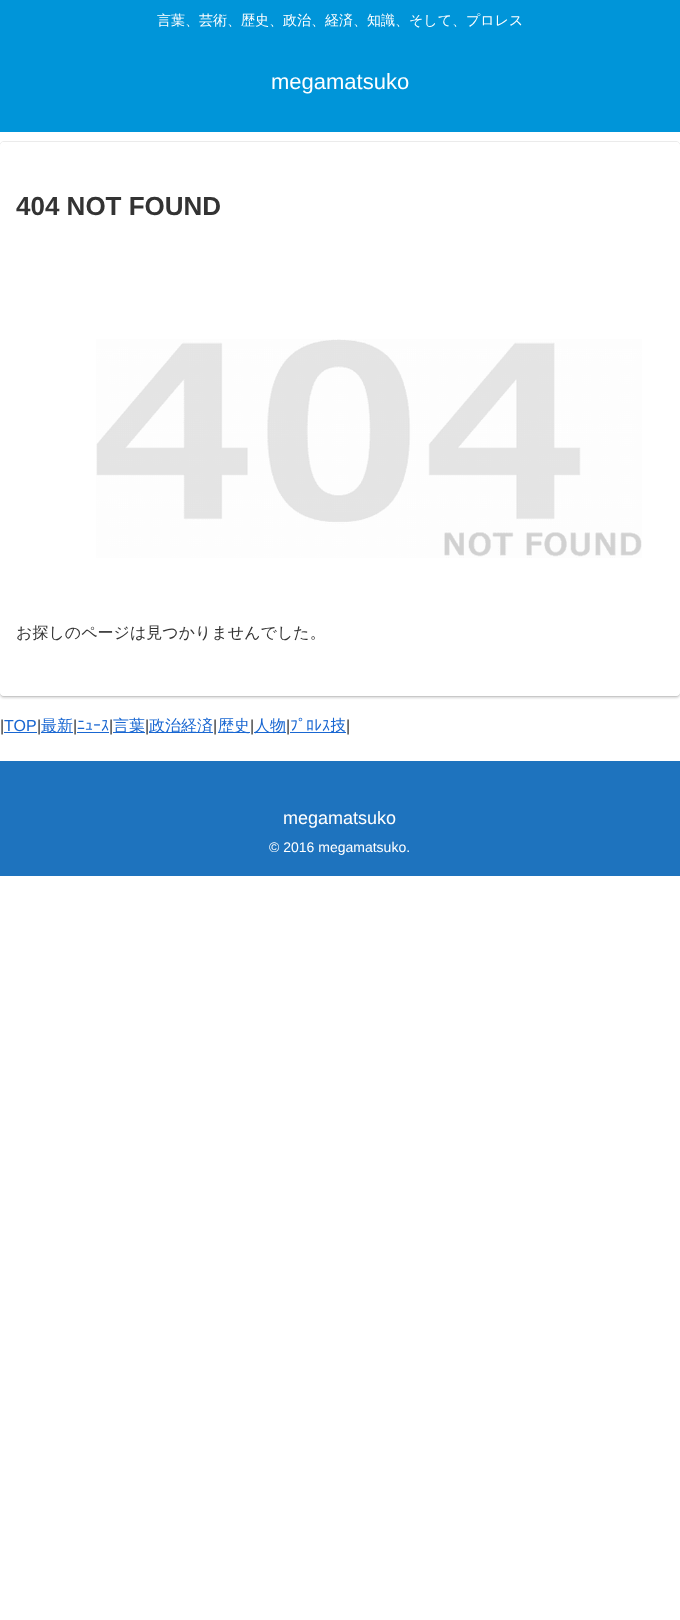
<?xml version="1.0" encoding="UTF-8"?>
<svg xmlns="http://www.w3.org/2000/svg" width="680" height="1620">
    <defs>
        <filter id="blur1" x="-50%" y="-200%" width="200%" height="500%"><feGaussianBlur stdDeviation="1"/></filter>
    </defs>
    <rect width="100%" height="100%" fill="#FFFFFF"/>
    <rect x="0" y="0" width="680" height="132" fill="#0095D9"/>
    <text x="157" y="25" font-family="WenQuanYi Zen Hei" font-size="14" font-weight="500" fill="#FFFFFF">言葉、芸術、歴史、政治、経済、知識、そして、プロレス</text>
    <text x="271" y="89" font-family="Liberation Sans" font-size="22" fill="#FFFFFF">megamatsuko</text>
    <rect x="-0.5" y="141.5" width="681" height="555" rx="4.5" fill="none" stroke="#EBEBEB"/>
    <rect x="0" y="144" width="680" height="554" rx="4" fill="#000000" fill-opacity="0.16" filter="url(#blur1)"/>
    <rect x="0" y="142" width="680" height="554" rx="4" fill="#FFFFFF"/>
    <text x="16" y="215" font-family="Liberation Sans" font-size="26" font-weight="700" fill="#333333">404 NOT FOUND</text>
    <image x="96" y="339" width="546" height="219" href="img_01.png"/>
    <text x="16" y="638" font-family="WenQuanYi Zen Hei" font-size="16" font-weight="500" fill="#333333">お探しのページは見つかりませんでした。</text>
    <text x="0" y="731" font-family="Liberation Sans" font-size="16" fill="#333333">|</text>
    <text x="4" y="731" font-family="Liberation Sans" font-size="16" fill="#1967D2">TOP</text>
    <rect x="4" y="732" width="33" height="1" fill="#1967D2"/>
    <text x="37" y="731" font-family="Liberation Sans" font-size="16" fill="#333333">|</text>
    <rect x="41" y="732" width="32" height="1" fill="#1967D2"/>
    <text x="41" y="731" font-family="WenQuanYi Zen Hei" font-size="16" font-weight="500" fill="#1967D2">最新</text>
    <text x="73" y="731" font-family="Liberation Sans" font-size="16" fill="#333333">|</text>
    <text x="77" y="731" font-family="IPAPGothic" font-size="16" fill="#1967D2">ﾆｭｰｽ</text>
    <rect x="77" y="732" width="32" height="1" fill="#1967D2"/>
    <text x="109" y="731" font-family="Liberation Sans" font-size="16" fill="#333333">|</text>
    <rect x="113" y="732" width="32" height="1" fill="#1967D2"/>
    <text x="113" y="731" font-family="WenQuanYi Zen Hei" font-size="16" font-weight="500" fill="#1967D2">言葉</text>
    <text x="145" y="731" font-family="Liberation Sans" font-size="16" fill="#333333">|</text>
    <rect x="149" y="732" width="64" height="1" fill="#1967D2"/>
    <text x="149" y="731" font-family="WenQuanYi Zen Hei" font-size="16" font-weight="500" fill="#1967D2">政治経済</text>
    <text x="213" y="731" font-family="Liberation Sans" font-size="16" fill="#333333">|</text>
    <rect x="218" y="732" width="32" height="1" fill="#1967D2"/>
    <text x="218" y="731" font-family="WenQuanYi Zen Hei" font-size="16" font-weight="500" fill="#1967D2">歴史</text>
    <text x="250" y="731" font-family="Liberation Sans" font-size="16" fill="#333333">|</text>
    <rect x="254" y="732" width="32" height="1" fill="#1967D2"/>
    <text x="254" y="731" font-family="WenQuanYi Zen Hei" font-size="16" font-weight="500" fill="#1967D2">人物</text>
    <text x="286" y="731" font-family="Liberation Sans" font-size="16" fill="#333333">|</text>
    <rect x="290" y="732" width="56" height="1" fill="#1967D2"/>
    <text x="290" y="731" font-family="IPAPGothic" font-size="16" fill="#1967D2">ﾌﾟﾛﾚｽ技</text>
    <text x="346" y="731" font-family="Liberation Sans" font-size="16" fill="#333333">|</text>
    <rect x="0" y="761" width="680" height="115" fill="#1E73BE"/>
    <text x="283" y="824" font-family="Liberation Sans" font-size="18" fill="#FFFFFF">megamatsuko</text>
    <text x="269" y="852" font-family="Liberation Sans" font-size="14" fill="#FFFFFF">© 2016 megamatsuko.</text>
</svg>
